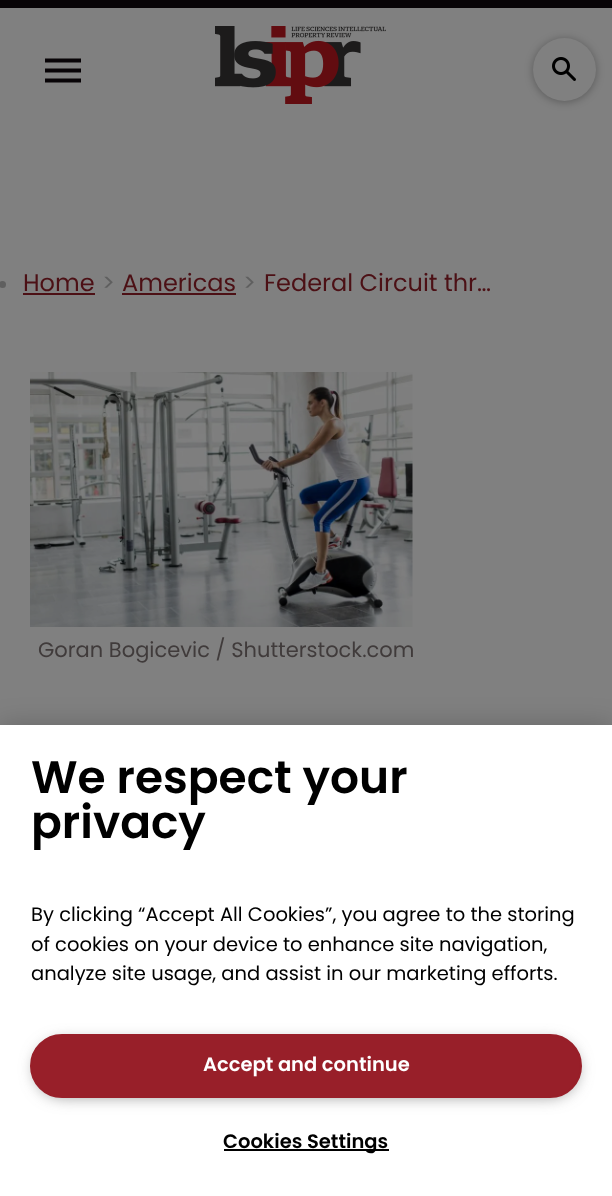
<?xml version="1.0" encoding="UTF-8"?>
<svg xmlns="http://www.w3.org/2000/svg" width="612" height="1196">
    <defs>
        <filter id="blur1" x="-50%" y="-200%" width="200%" height="500%"><feGaussianBlur stdDeviation="4"/></filter>
        <filter id="blur2" x="-50%" y="-200%" width="200%" height="500%"><feGaussianBlur stdDeviation="13.5"/></filter>
        <filter id="blur3" x="-50%" y="-200%" width="200%" height="500%"><feGaussianBlur stdDeviation="7.5"/></filter>
    </defs>
    <rect width="100%" height="100%" fill="#808080"/>
    <rect x="0" y="0" width="612" height="8" fill="#080407"/>
    <path d="M 45 82.5 H 81 V 78.5 H 45 Z M 45 72.5 H 81 V 68.5 H 45 Z M 45 58.5 V 62.5 H 81 V 58.5 Z" fill="#080407"/>
    <image x="215" y="26" width="171" height="78" href="img_01.png"/>
    <rect x="533" y="39" width="63" height="63" rx="31.5" fill="#000000" fill-opacity="0.3" filter="url(#blur1)"/>
    <circle cx="564.5" cy="69.5" r="31.5" fill="#808080"/>
    <image x="552" y="57" width="24" height="24" href="img_02.png"/>
    <circle cx="2.5" cy="284.5" r="3.5" fill="#5F5F5F"/>
    <text x="23" y="291" font-family="Poppins" font-size="24" fill="#4C1015">Home</text>
    <rect x="23" y="293" width="72" height="2" fill="#4C1015"/>
    <text x="102" y="291" font-family="Poppins" font-size="24" fill="#5F5F5F">&gt;</text>
    <text x="122" y="291" font-family="Poppins" font-size="24" fill="#4C1015">Americas</text>
    <rect x="122" y="293" width="114" height="2" fill="#4C1015"/>
    <text x="243" y="291" font-family="Poppins" font-size="24" fill="#5F5F5F">&gt;</text>
    <text x="264" y="291" font-family="Poppins" font-size="24" fill="#4C1015">Federal Circuit thr…</text>
    <image x="30" y="372" width="383" height="255" href="img_03.png"/>
    <text x="38" y="657" font-family="Poppins" font-size="21" fill="#403B3B">Goran Bogicevic / Shutterstock.com</text>
    <rect x="0" y="725" width="612" height="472" fill="#000000" fill-opacity="0.2" filter="url(#blur2)"/>
    <rect x="0" y="725" width="612" height="471" fill="#FFFFFF"/>
    <text font-family="Poppins" font-size="45.5" font-weight="600" fill="#000000">
        <tspan x="31" y="793">We respect your</tspan>
        <tspan x="31" y="838">privacy</tspan>
    </text>
    <text font-family="Poppins" font-size="19.5" fill="#000000">
        <tspan x="31" y="921">By clicking “Accept All Cookies”, you agree to the storing</tspan>
        <tspan x="31" y="951">of cookies on your device to enhance site navigation,</tspan>
        <tspan x="31" y="980">analyze site usage, and assist in our marketing efforts.</tspan>
    </text>
    <rect x="35" y="1041" width="543" height="56" rx="28" fill="#999999" filter="url(#blur3)"/>
    <rect x="31" y="1035" width="550" height="62" rx="31" fill="#981F29" stroke="#981F29" stroke-width="2"/>
    <text x="203" y="1071" font-family="Poppins" font-size="19.5" font-weight="600" fill="#FFFFFF">Accept and continue</text>
    <rect x="224" y="1149" width="165" height="2" fill="#000000"/>
    <text x="223" y="1148" font-family="Poppins" font-size="19.5" font-weight="600" fill="#000000">Cookies Settings</text>
</svg>
